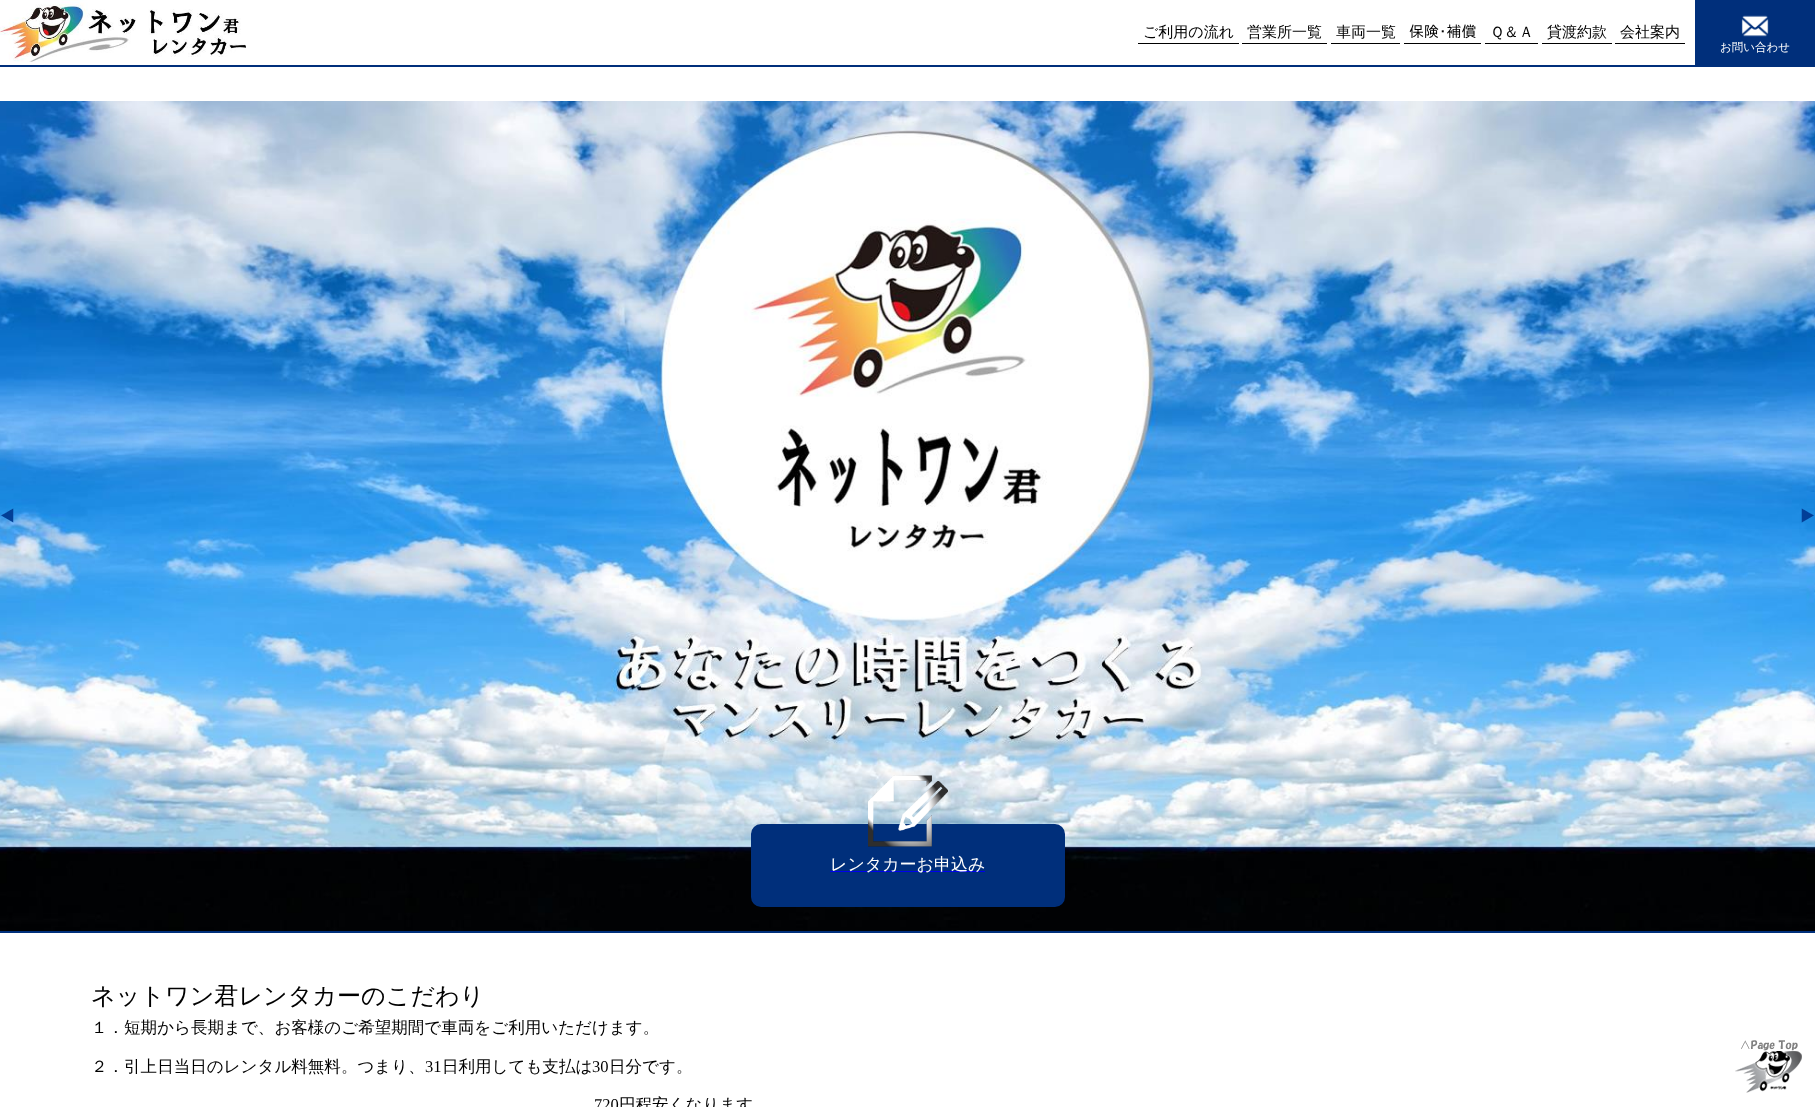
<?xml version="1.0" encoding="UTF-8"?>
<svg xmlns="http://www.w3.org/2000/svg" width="1815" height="1107">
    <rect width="100%" height="100%" fill="#FFFFFF"/>
    <rect x="0" y="65" width="1815" height="2" fill="#002F7B"/>
    <image x="0" y="0" width="246" height="62" href="img_01.png"/>
    <text x="1143" y="37" font-family="WenQuanYi Zen Hei" font-size="15" font-weight="500" fill="#000000">ご利用の流れ</text>
    <rect x="1138" y="43" width="101" height="1" fill="#000000"/>
    <text x="1247" y="37" font-family="WenQuanYi Zen Hei" font-size="15" font-weight="500" fill="#000000">営業所一覧</text>
    <rect x="1242" y="43" width="85" height="1" fill="#000000"/>
    <text x="1336" y="37" font-family="WenQuanYi Zen Hei" font-size="15" font-weight="500" fill="#000000">車両一覧</text>
    <rect x="1331" y="43" width="69" height="1" fill="#000000"/>
    <text x="1409" y="37" font-family="IPAGothic" font-size="15" fill="#000000">保険･補償</text>
    <rect x="1404" y="43" width="77" height="1" fill="#000000"/>
    <text x="1490" y="37" font-family="WenQuanYi Zen Hei" font-size="15" font-weight="500" fill="#000000">Ｑ＆Ａ</text>
    <rect x="1485" y="43" width="53" height="1" fill="#000000"/>
    <text x="1547" y="37" font-family="WenQuanYi Zen Hei" font-size="15" font-weight="500" fill="#000000">貸渡約款</text>
    <rect x="1542" y="43" width="70" height="1" fill="#000000"/>
    <text x="1620" y="37" font-family="WenQuanYi Zen Hei" font-size="15" font-weight="500" fill="#000000">会社案内</text>
    <rect x="1615" y="43" width="70" height="1" fill="#000000"/>
    <rect x="1695" y="0" width="120" height="65" fill="#002F7B"/>
    <image x="1741" y="15" width="28" height="22" href="img_02.png"/>
    <text x="1720" y="51" font-family="WenQuanYi Zen Hei" font-size="11.5" font-weight="500" fill="#FFFFFF">お問い合わせ</text>
    <rect x="0" y="931" width="1815" height="2" fill="#002F7B"/>
    <image x="0" y="101" width="1815" height="830" href="img_03.png"/>
    <image x="1" y="508" width="13" height="15" href="img_04.png"/>
    <image x="1801" y="508" width="13" height="15" href="img_05.png"/>
    <rect x="752" y="825" width="312" height="81" rx="9" fill="#002F7B" stroke="#002F7B" stroke-width="2"/>
    <image x="868" y="775" width="80" height="72" href="img_06.png"/>
    <rect x="830" y="871" width="155" height="1" fill="#0000EE"/>
    <text x="830" y="870" font-family="WenQuanYi Zen Hei" font-size="17" font-weight="500" fill="#FFFFFF">レンタカーお申込み</text>
    <text x="91" y="1004" font-family="WenQuanYi Zen Hei" font-size="24.1" font-weight="500" fill="#000000">ネットワン君レンタカーのこだわり</text>
    <text x="91" y="1033" font-family="WenQuanYi Zen Hei" font-size="16.55" font-weight="500" fill="#000000">１．短期から長期まで、お客様のご希望期間で車両をご利用いただけます。</text>
    <text x="91" y="1072" font-family="WenQuanYi Zen Hei" font-size="16.55" font-weight="500" fill="#000000">２．引上日当日のレンタル料無料。つまり、</text>
    <text x="425" y="1072" font-family="Liberation Serif" font-size="16.55" fill="#000000">31</text>
    <text x="442" y="1072" font-family="WenQuanYi Zen Hei" font-size="16.55" font-weight="500" fill="#000000">日利用しても支払は</text>
    <text x="592" y="1072" font-family="Liberation Serif" font-size="16.55" fill="#000000">30</text>
    <text x="609" y="1072" font-family="WenQuanYi Zen Hei" font-size="16.55" font-weight="500" fill="#000000">日分です。</text>
    <text x="594" y="1110" font-family="Liberation Serif" font-size="16.55" fill="#000000">720</text>
    <text x="619" y="1110" font-family="WenQuanYi Zen Hei" font-size="16.55" font-weight="500" fill="#000000">円程安くなります</text>
    <image x="1735" y="1040" width="67" height="53" href="img_07.png"/>
</svg>
